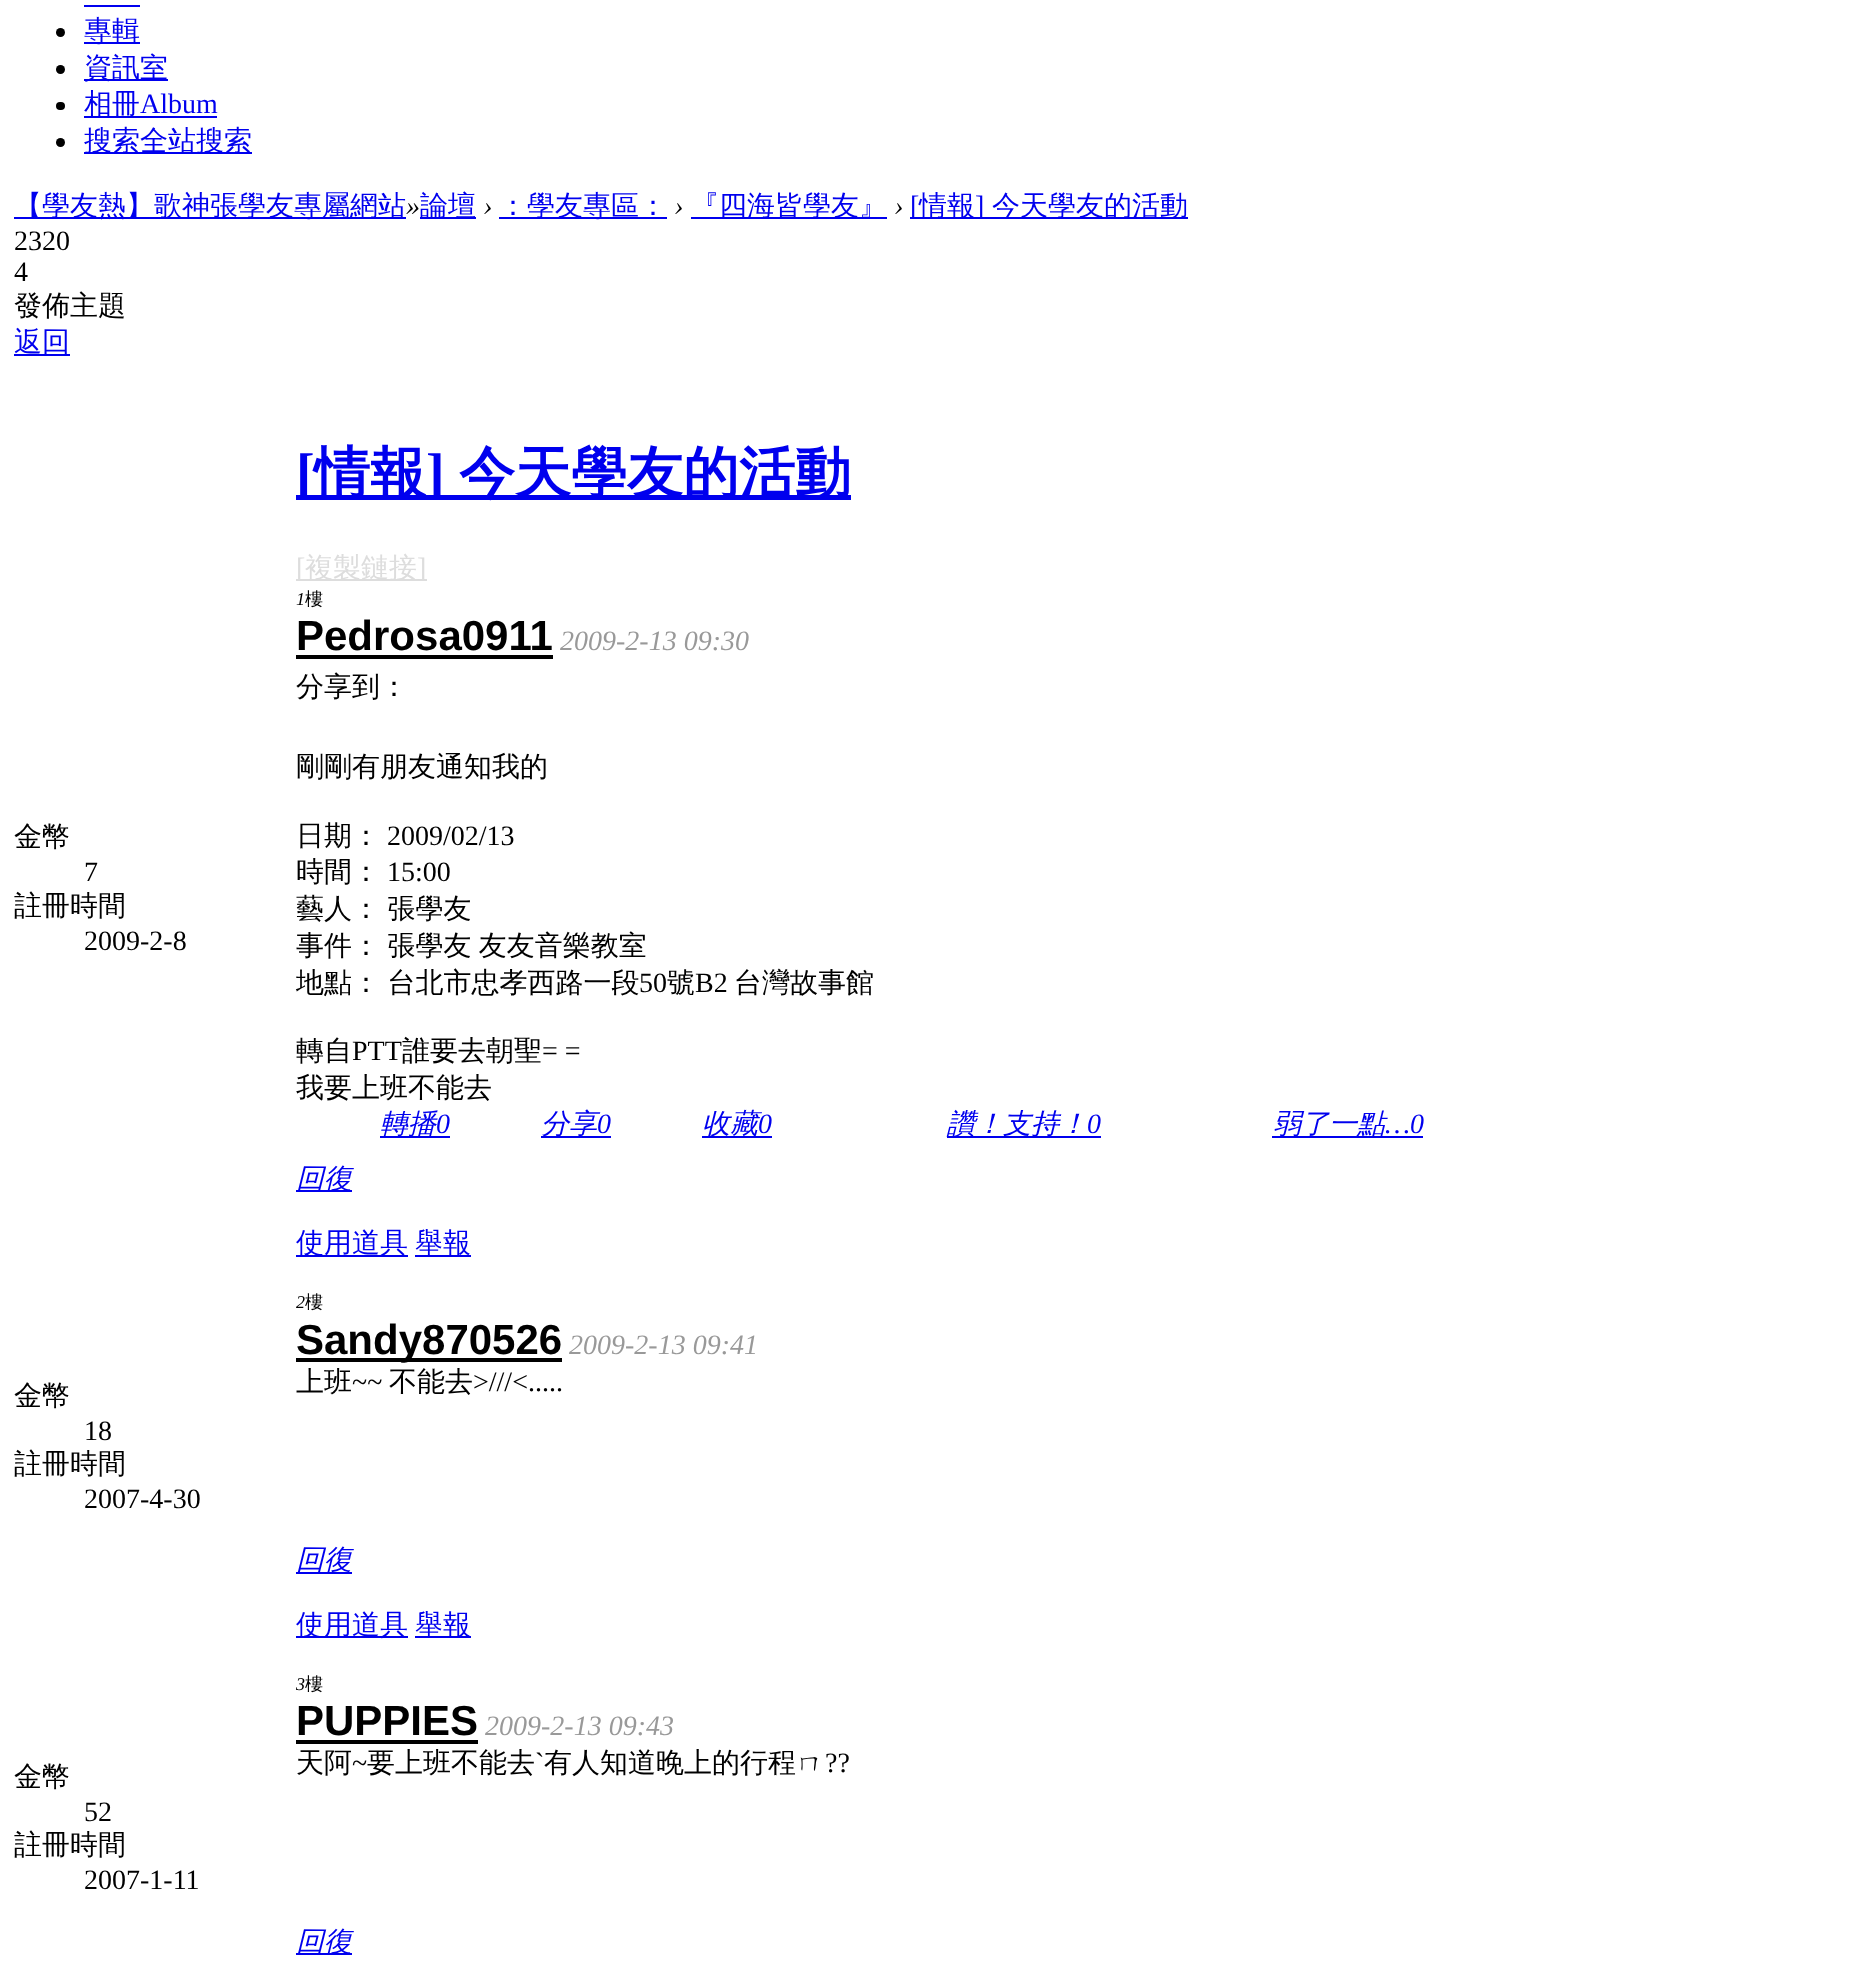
<?xml version="1.0" encoding="UTF-8"?>
<svg xmlns="http://www.w3.org/2000/svg" width="1850" height="1971">
    <rect width="100%" height="100%" fill="#FFFFFF"/>
    <rect x="84" y="5" width="56" height="2" fill="#0000EE"/>
    <circle cx="60.5" cy="32.5" r="4.5" fill="#000000"/>
    <rect x="84" y="42" width="56" height="2" fill="#0000EE"/>
    <text x="84" y="40" font-family="WenQuanYi Zen Hei" font-size="28" font-weight="500" fill="#0000EE">專輯</text>
    <circle cx="60.5" cy="69.5" r="4.5" fill="#000000"/>
    <rect x="84" y="79" width="84" height="2" fill="#0000EE"/>
    <text x="84" y="77" font-family="WenQuanYi Zen Hei" font-size="28" font-weight="500" fill="#0000EE">資訊室</text>
    <rect x="56" y="102" width="9" height="8" rx="4" fill="#000000"/>
    <rect x="84" y="116" width="133" height="2" fill="#0000EE"/>
    <text x="84" y="113" font-family="WenQuanYi Zen Hei" font-size="28" font-weight="500" fill="#0000EE">相冊</text>
    <text x="140" y="113" font-family="Liberation Serif" font-size="28" fill="#0000EE">Album</text>
    <circle cx="60.5" cy="142.5" r="4.5" fill="#000000"/>
    <rect x="84" y="152" width="168" height="2" fill="#0000EE"/>
    <text x="84" y="150" font-family="WenQuanYi Zen Hei" font-size="28" font-weight="500" fill="#0000EE">搜索全站搜索</text>
    <rect x="14" y="217" width="392" height="2" fill="#0000EE"/>
    <text x="14" y="215" font-family="WenQuanYi Zen Hei" font-size="28" font-weight="500" fill="#0000EE">【學友熱】歌神張學友專屬網站</text>
    <text x="406" y="215" font-family="Liberation Serif" font-size="28" font-style="italic" fill="#000000">»</text>
    <rect x="420" y="217" width="56" height="2" fill="#0000EE"/>
    <text x="420" y="215" font-family="WenQuanYi Zen Hei" font-size="28" font-weight="500" fill="#0000EE">論壇</text>
    <text x="483" y="215" font-family="Liberation Serif" font-size="28" font-style="italic" fill="#000000">›</text>
    <rect x="499" y="217" width="168" height="2" fill="#0000EE"/>
    <text x="499" y="215" font-family="WenQuanYi Zen Hei" font-size="28" font-weight="500" fill="#0000EE">：學友專區：</text>
    <text x="674" y="215" font-family="Liberation Serif" font-size="28" font-style="italic" fill="#000000">›</text>
    <rect x="691" y="217" width="196" height="2" fill="#0000EE"/>
    <text x="691" y="215" font-family="WenQuanYi Zen Hei" font-size="28" font-weight="500" fill="#0000EE">『四海皆學友』</text>
    <text x="894" y="215" font-family="Liberation Serif" font-size="28" font-style="italic" fill="#000000">›</text>
    <rect x="910" y="217" width="278" height="2" fill="#0000EE"/>
    <text x="910" y="215" font-family="Liberation Serif" font-size="28" fill="#0000EE">[</text>
    <text x="919" y="215" font-family="WenQuanYi Zen Hei" font-size="28" font-weight="500" fill="#0000EE">情報</text>
    <text x="975" y="215" font-family="Liberation Serif" font-size="28" fill="#0000EE">]</text>
    <text x="992" y="215" font-family="WenQuanYi Zen Hei" font-size="28" font-weight="500" fill="#0000EE">今天學友的活動</text>
    <text font-family="Liberation Serif" font-size="28" fill="#000000">
        <tspan x="14" y="250">2320</tspan>
        <tspan x="14" y="281">4</tspan>
    </text>
    <text x="14" y="315" font-family="WenQuanYi Zen Hei" font-size="28" font-weight="500" fill="#000000">發佈主題</text>
    <rect x="14" y="354" width="56" height="2" fill="#0000EE"/>
    <text x="14" y="351" font-family="WenQuanYi Zen Hei" font-size="28" font-weight="500" fill="#0000EE">返回</text>
    <rect x="296" y="495" width="555" height="5" fill="#0000EE"/>
    <text x="296" y="492" font-family="Liberation Serif" font-size="56" font-weight="700" fill="#0000EE">[</text>
    <text x="314" y="492" font-family="WenQuanYi Zen Hei" font-size="56" font-weight="700" fill="#0000EE">情報</text>
    <text x="426" y="492" font-family="Liberation Serif" font-size="56" font-weight="700" fill="#0000EE">]</text>
    <text x="459" y="492" font-family="WenQuanYi Zen Hei" font-size="56" font-weight="700" fill="#0000EE">今天學友的活動</text>
    <rect x="296" y="579" width="131" height="2" fill="#DDDDDD"/>
    <text x="296" y="577" font-family="Liberation Serif" font-size="28" fill="#DDDDDD">[</text>
    <text x="305" y="577" font-family="WenQuanYi Zen Hei" font-size="28" font-weight="500" fill="#DDDDDD">複製鏈接</text>
    <text x="417" y="577" font-family="Liberation Serif" font-size="28" fill="#DDDDDD">]</text>
    <text x="14" y="846" font-family="WenQuanYi Zen Hei" font-size="28" font-weight="500" fill="#000000">金幣</text>
    <text x="84" y="881" font-family="Liberation Serif" font-size="28" fill="#000000">7</text>
    <text x="14" y="915" font-family="WenQuanYi Zen Hei" font-size="28" font-weight="500" fill="#000000">註冊時間</text>
    <text x="84" y="950" font-family="Liberation Serif" font-size="28" fill="#000000">2009-2-8</text>
    <text x="296" y="605" font-family="Liberation Serif" font-size="18" font-style="italic" fill="#000000">1</text>
    <text x="305" y="605" font-family="WenQuanYi Zen Hei" font-size="18" font-weight="500" fill="#000000">樓</text>
    <text x="296" y="650" font-family="Liberation Sans" font-size="42" font-weight="700" fill="#000000">Pedrosa0911</text>
    <rect x="296" y="655" width="257" height="4" fill="#000000"/>
    <text x="560" y="650" font-family="Liberation Serif" font-size="28" font-style="italic" fill="#999999">2009-2-13 09:30</text>
    <text x="296" y="696" font-family="WenQuanYi Zen Hei" font-size="28" font-weight="500" fill="#000000">分享到：</text>
    <text x="296" y="776" font-family="WenQuanYi Zen Hei" font-size="28" font-weight="500" fill="#000000">剛剛有朋友通知我的</text>
    <text x="296" y="845" font-family="WenQuanYi Zen Hei" font-size="28" font-weight="500" fill="#000000">日期：</text>
    <text x="387" y="845" font-family="Liberation Serif" font-size="28" fill="#000000">2009/02/13</text>
    <text x="296" y="881" font-family="WenQuanYi Zen Hei" font-size="28" font-weight="500" fill="#000000">時間：</text>
    <text x="387" y="881" font-family="Liberation Serif" font-size="28" fill="#000000">15:00</text>
    <text font-family="WenQuanYi Zen Hei" font-size="28" font-weight="500" fill="#000000">
        <tspan x="296" y="918" word-spacing="-1">藝人： 張學友</tspan>
        <tspan x="296" y="955" word-spacing="-1">事件： 張學友 友友音樂教室</tspan>
        <tspan x="296" y="992" word-spacing="-1">地點： 台北市忠孝西路一段</tspan>
    </text>
    <text x="639" y="992" font-family="Liberation Serif" font-size="28" fill="#000000">50</text>
    <text x="667" y="992" font-family="WenQuanYi Zen Hei" font-size="28" font-weight="500" fill="#000000">號</text>
    <text x="695" y="992" font-family="Liberation Serif" font-size="28" fill="#000000">B2</text>
    <text x="734" y="992" font-family="WenQuanYi Zen Hei" font-size="28" font-weight="500" fill="#000000">台灣故事館</text>
    <text x="296" y="1060" font-family="WenQuanYi Zen Hei" font-size="28" font-weight="500" fill="#000000">轉自</text>
    <text x="352" y="1060" font-family="Liberation Serif" font-size="28" fill="#000000">PTT</text>
    <text x="402" y="1060" font-family="WenQuanYi Zen Hei" font-size="28" font-weight="500" fill="#000000">誰要去朝聖</text>
    <text x="542" y="1060" font-family="Liberation Serif" font-size="28" fill="#000000">= =</text>
    <text x="296" y="1097" font-family="WenQuanYi Zen Hei" font-size="28" font-weight="500" fill="#000000">我要上班不能去</text>
    <rect x="380" y="1136" width="56" height="2" fill="#0000EE"/>
    <text x="380" y="1133" font-family="WenQuanYi Zen Hei" font-size="28" font-weight="500" font-style="italic" fill="#0000EE">轉播</text>
    <text x="436" y="1133" font-family="Liberation Serif" font-size="28" font-style="italic" fill="#0000EE">0</text>
    <rect x="436" y="1136" width="14" height="2" fill="#0000EE"/>
    <rect x="541" y="1136" width="56" height="2" fill="#0000EE"/>
    <text x="541" y="1133" font-family="WenQuanYi Zen Hei" font-size="28" font-weight="500" font-style="italic" fill="#0000EE">分享</text>
    <text x="597" y="1133" font-family="Liberation Serif" font-size="28" font-style="italic" fill="#0000EE">0</text>
    <rect x="597" y="1136" width="14" height="2" fill="#0000EE"/>
    <rect x="702" y="1136" width="56" height="2" fill="#0000EE"/>
    <text x="702" y="1133" font-family="WenQuanYi Zen Hei" font-size="28" font-weight="500" font-style="italic" fill="#0000EE">收藏</text>
    <text x="758" y="1133" font-family="Liberation Serif" font-size="28" font-style="italic" fill="#0000EE">0</text>
    <rect x="758" y="1136" width="14" height="2" fill="#0000EE"/>
    <rect x="947" y="1136" width="154" height="2" fill="#0000EE"/>
    <text x="947" y="1133" font-family="WenQuanYi Zen Hei" font-size="28" font-weight="500" font-style="italic" fill="#0000EE">讚！支持！</text>
    <text x="1087" y="1133" font-family="Liberation Serif" font-size="28" font-style="italic" fill="#0000EE">0</text>
    <rect x="1272" y="1136" width="151" height="2" fill="#0000EE"/>
    <text x="1273" y="1133" font-family="WenQuanYi Zen Hei" font-size="28" font-weight="500" font-style="italic" fill="#0000EE">弱了一點</text>
    <text x="1385" y="1133" font-family="Liberation Serif" font-size="28" font-style="italic" fill="#0000EE">…0</text>
    <rect x="296" y="1190" width="56" height="2" fill="#0000EE"/>
    <text x="296" y="1188" font-family="WenQuanYi Zen Hei" font-size="28" font-weight="500" font-style="italic" fill="#0000EE">回復</text>
    <rect x="296" y="1255" width="112" height="2" fill="#0000EE"/>
    <text x="296" y="1252" font-family="WenQuanYi Zen Hei" font-size="28" font-weight="500" fill="#0000EE">使用道具</text>
    <rect x="415" y="1255" width="56" height="2" fill="#0000EE"/>
    <text x="415" y="1252" font-family="WenQuanYi Zen Hei" font-size="28" font-weight="500" fill="#0000EE">舉報</text>
    <text x="296" y="1308" font-family="Liberation Serif" font-size="18" font-style="italic" fill="#000000">2</text>
    <text x="305" y="1308" font-family="WenQuanYi Zen Hei" font-size="18" font-weight="500" fill="#000000">樓</text>
    <rect x="296" y="1358" width="266" height="4" fill="#000000"/>
    <text x="296" y="1354" font-family="Liberation Sans" font-size="42" font-weight="700" fill="#000000">Sandy870526</text>
    <text x="569" y="1354" font-family="Liberation Serif" font-size="28" font-style="italic" fill="#999999">2009-2-13 09:41</text>
    <text x="296" y="1391" font-family="WenQuanYi Zen Hei" font-size="28" font-weight="500" fill="#000000">上班</text>
    <text x="352" y="1391" font-family="Liberation Serif" font-size="28" fill="#000000">~~</text>
    <text x="389" y="1391" font-family="WenQuanYi Zen Hei" font-size="28" font-weight="500" fill="#000000">不能去</text>
    <text x="473" y="1391" font-family="Liberation Serif" font-size="28" fill="#000000">&gt;///&lt;.....</text>
    <text x="14" y="1405" font-family="WenQuanYi Zen Hei" font-size="28" font-weight="500" fill="#000000">金幣</text>
    <text x="84" y="1440" font-family="Liberation Serif" font-size="28" fill="#000000">18</text>
    <text x="14" y="1473" font-family="WenQuanYi Zen Hei" font-size="28" font-weight="500" fill="#000000">註冊時間</text>
    <text x="84" y="1508" font-family="Liberation Serif" font-size="28" fill="#000000">2007-4-30</text>
    <rect x="296" y="1572" width="56" height="2" fill="#0000EE"/>
    <text x="296" y="1569" font-family="WenQuanYi Zen Hei" font-size="28" font-weight="500" font-style="italic" fill="#0000EE">回復</text>
    <rect x="296" y="1636" width="112" height="2" fill="#0000EE"/>
    <text x="296" y="1634" font-family="WenQuanYi Zen Hei" font-size="28" font-weight="500" fill="#0000EE">使用道具</text>
    <rect x="415" y="1636" width="56" height="2" fill="#0000EE"/>
    <text x="415" y="1634" font-family="WenQuanYi Zen Hei" font-size="28" font-weight="500" fill="#0000EE">舉報</text>
    <text x="296" y="1690" font-family="Liberation Serif" font-size="18" font-style="italic" fill="#000000">3</text>
    <text x="305" y="1690" font-family="WenQuanYi Zen Hei" font-size="18" font-weight="500" fill="#000000">樓</text>
    <text x="296" y="1735" font-family="Liberation Sans" font-size="42" font-weight="700" fill="#000000">PUPPIES</text>
    <rect x="296" y="1740" width="182" height="4" fill="#000000"/>
    <text x="485" y="1735" font-family="Liberation Serif" font-size="28" font-style="italic" fill="#999999">2009-2-13 09:43</text>
    <text x="296" y="1772" font-family="WenQuanYi Zen Hei" font-size="28" font-weight="500" fill="#000000">天阿</text>
    <text x="352" y="1772" font-family="Liberation Serif" font-size="28" fill="#000000">~</text>
    <text x="367" y="1772" font-family="WenQuanYi Zen Hei" font-size="28" font-weight="500" fill="#000000">要上班不能去</text>
    <text x="535" y="1772" font-family="Liberation Serif" font-size="28" fill="#000000">`</text>
    <text x="544" y="1772" font-family="WenQuanYi Zen Hei" font-size="28" font-weight="500" fill="#000000">有人知道晚上的行程ㄇ</text>
    <text x="825" y="1772" font-family="Liberation Serif" font-size="28" fill="#000000">??</text>
    <text x="14" y="1786" font-family="WenQuanYi Zen Hei" font-size="28" font-weight="500" fill="#000000">金幣</text>
    <text x="84" y="1821" font-family="Liberation Serif" font-size="28" fill="#000000">52</text>
    <text x="14" y="1854" font-family="WenQuanYi Zen Hei" font-size="28" font-weight="500" fill="#000000">註冊時間</text>
    <text x="84" y="1889" font-family="Liberation Serif" font-size="28" fill="#000000">2007-1-11</text>
    <rect x="296" y="1953" width="56" height="2" fill="#0000EE"/>
    <text x="296" y="1951" font-family="WenQuanYi Zen Hei" font-size="28" font-weight="500" font-style="italic" fill="#0000EE">回復</text>
</svg>
